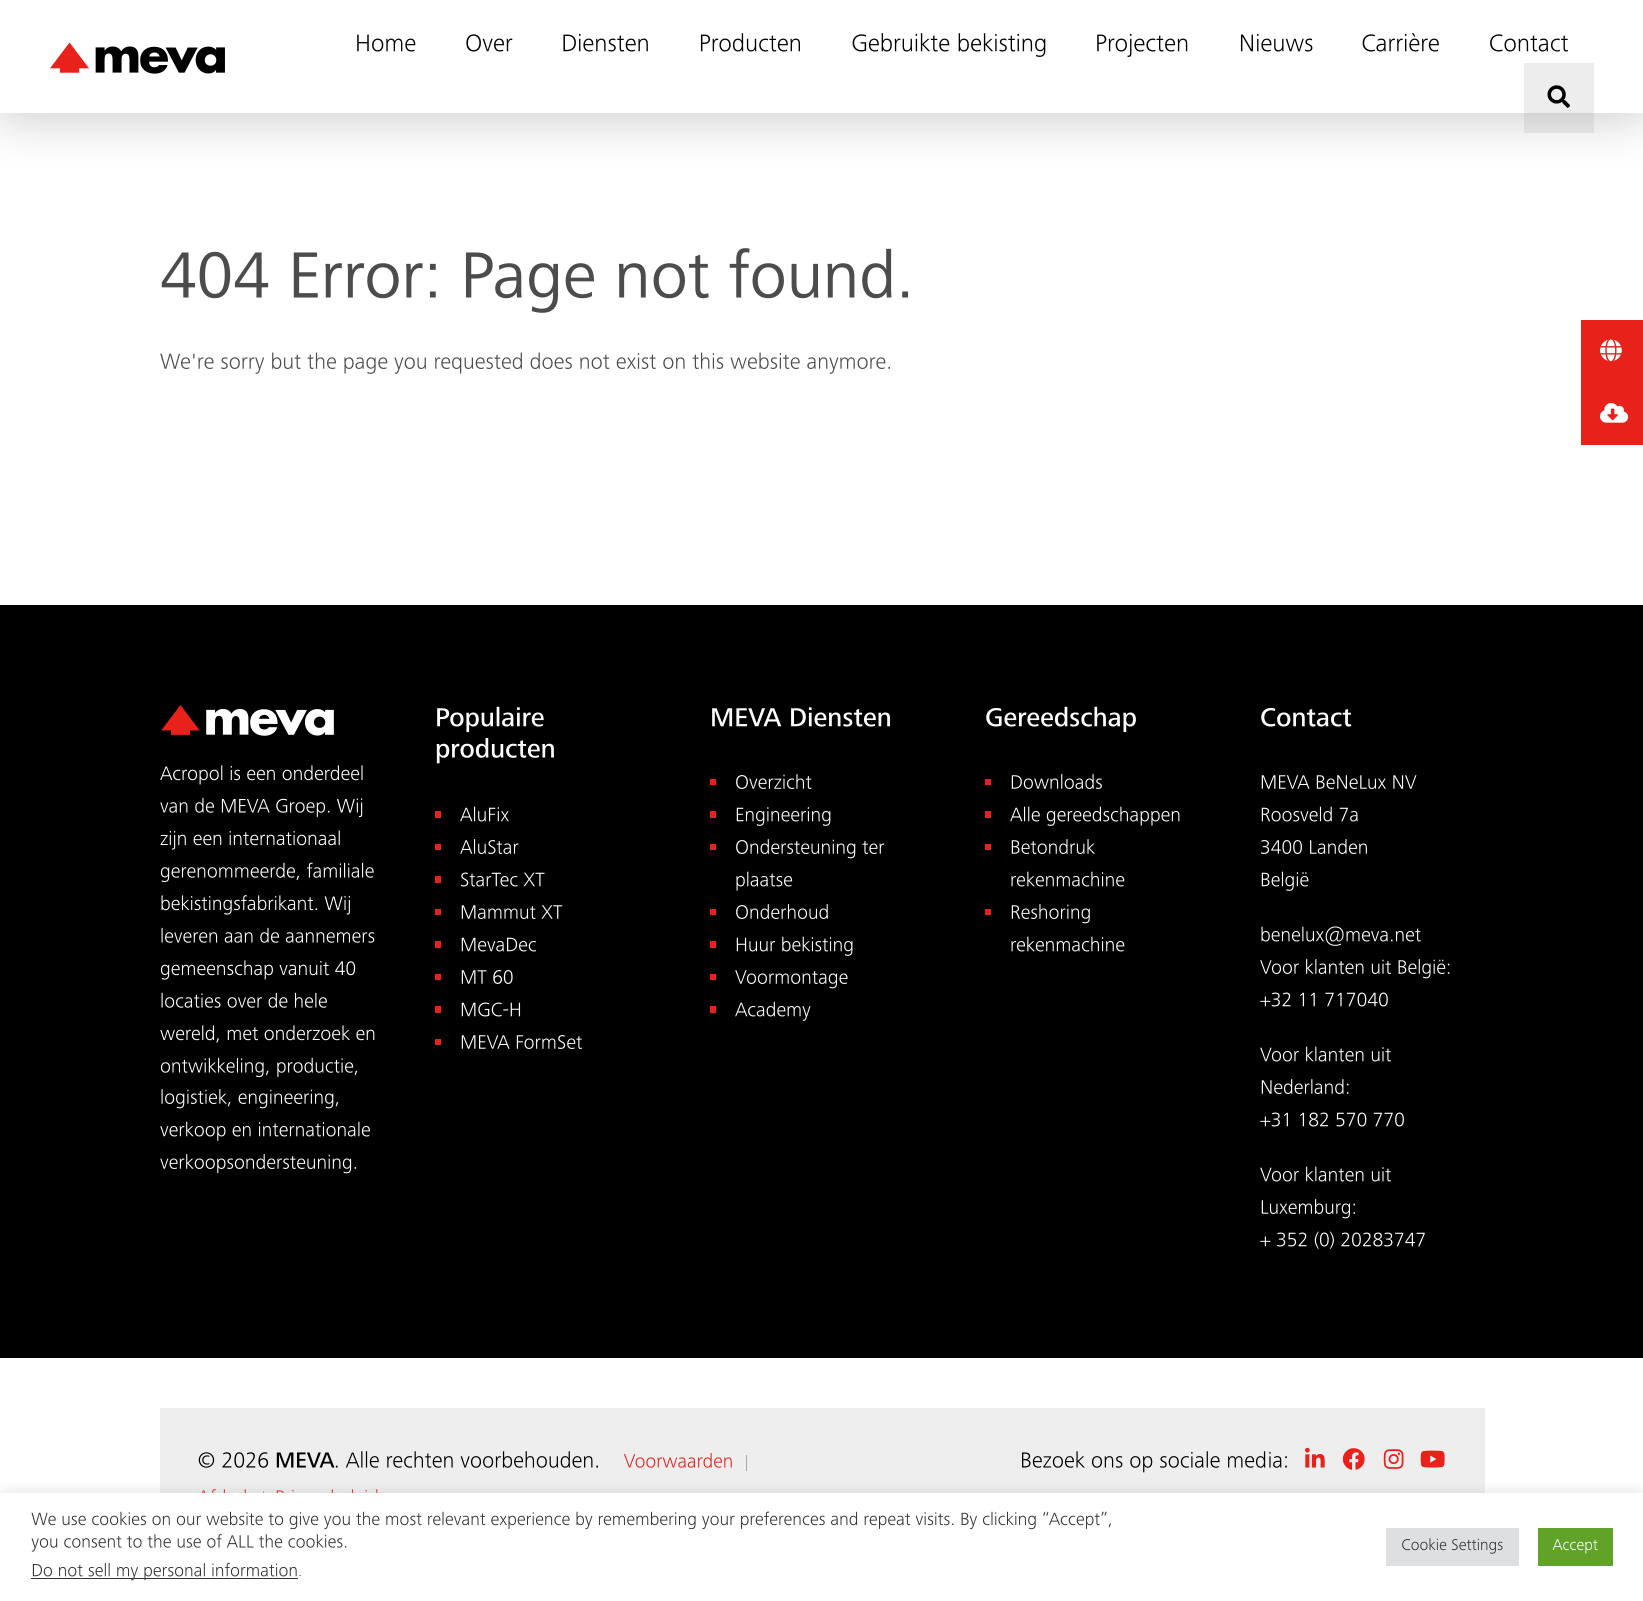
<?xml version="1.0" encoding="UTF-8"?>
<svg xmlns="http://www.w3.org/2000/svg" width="1643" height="1601">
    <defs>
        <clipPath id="clip1"><path d="M 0 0 H 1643 V 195 H 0 Z M 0 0 H 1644 V 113 H 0 Z" clip-rule="evenodd"/></clipPath>
        <filter id="blur1" x="-50%" y="-200%" width="200%" height="500%"><feGaussianBlur stdDeviation="25"/></filter>
        <filter id="blur2" x="-50%" y="-200%" width="200%" height="500%"><feGaussianBlur stdDeviation="6"/></filter>
    </defs>
    <rect width="100%" height="100%" fill="#FFFFFF"/>
    <g clip-path="url(#clip1)">
        <rect x="-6" y="-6" width="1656" height="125" fill="#000000" fill-opacity="0.2" filter="url(#blur1)"/>
    </g>
    <rect x="0" y="112" width="1643" height="1" fill="#FFFFFF" fill-opacity="0.9"/>
    <image x="50" y="43" width="175" height="31" href="img_01.png"/>
    <image x="357" y="34" width="59" height="18" href="img_02.png"/>
    <image x="466" y="34" width="47" height="18" href="img_03.png"/>
    <image x="563" y="33" width="85" height="19" href="img_04.png"/>
    <image x="700" y="33" width="100" height="19" href="img_05.png"/>
    <image x="852" y="33" width="194" height="24" href="img_06.png"/>
    <image x="1097" y="33" width="91" height="24" href="img_07.png"/>
    <image x="1240" y="33" width="73" height="19" href="img_08.png"/>
    <image x="1362" y="33" width="77" height="19" href="img_09.png"/>
    <image x="1490" y="34" width="78" height="18" href="img_10.png"/>
    <rect x="1524" y="63" width="70" height="70" fill="#A6A6A6" fill-opacity="0.2"/>
    <image x="1547" y="85" width="23" height="23" href="img_11.png"/>
    <image x="161" y="248" width="748" height="65" href="img_12.png"/>
    <image x="160" y="352" width="730" height="22" href="img_13.png"/>
    <rect x="1581" y="320" width="62" height="125" fill="#E8221B"/>
    <image x="1600" y="403" width="29" height="20" href="img_14.png"/>
    <image x="1600" y="339" width="22" height="23" href="img_15.png"/>
    <rect x="0" y="605" width="1643" height="753" fill="#000000"/>
    <image x="161" y="705" width="173" height="31" href="img_16.png"/>
    <image x="160" y="765" width="203" height="20" href="img_17.png"/>
    <image x="160" y="797" width="203" height="21" href="img_18.png"/>
    <image x="160" y="830" width="180" height="20" href="img_19.png"/>
    <image x="160" y="862" width="214" height="21" href="img_20.png"/>
    <image x="161" y="895" width="189" height="20" href="img_21.png"/>
    <image x="161" y="927" width="214" height="16" href="img_22.png"/>
    <image x="160" y="960" width="196" height="20" href="img_23.png"/>
    <image x="161" y="992" width="166" height="16" href="img_24.png"/>
    <image x="160" y="1025" width="215" height="18" href="img_25.png"/>
    <image x="160" y="1057" width="198" height="21" href="img_26.png"/>
    <image x="161" y="1089" width="178" height="20" href="img_27.png"/>
    <image x="160" y="1121" width="210" height="20" href="img_28.png"/>
    <image x="160" y="1154" width="197" height="20" href="img_29.png"/>
    <image x="437" y="706" width="107" height="27" href="img_30.png"/>
    <image x="436" y="738" width="118" height="26" href="img_31.png"/>
    <rect x="435" y="811" width="6" height="7" fill="#E8221B"/>
    <image x="460" y="806" width="49" height="16" href="img_32.png"/>
    <rect x="435" y="844" width="6" height="6" fill="#E8221B"/>
    <image x="460" y="839" width="59" height="15" href="img_33.png"/>
    <rect x="435" y="876" width="6" height="7" fill="#E8221B"/>
    <image x="461" y="872" width="84" height="15" href="img_34.png"/>
    <rect x="435" y="909" width="6" height="6" fill="#E8221B"/>
    <image x="461" y="905" width="102" height="14" href="img_35.png"/>
    <rect x="435" y="941" width="6" height="7" fill="#E8221B"/>
    <image x="461" y="937" width="75" height="15" href="img_36.png"/>
    <rect x="435" y="974" width="6" height="6" fill="#E8221B"/>
    <image x="461" y="970" width="52" height="14" href="img_37.png"/>
    <rect x="435" y="1006" width="6" height="7" fill="#E8221B"/>
    <image x="461" y="1002" width="60" height="15" href="img_38.png"/>
    <rect x="435" y="1039" width="6" height="6" fill="#E8221B"/>
    <image x="461" y="1035" width="121" height="14" href="img_39.png"/>
    <image x="712" y="707" width="178" height="20" href="img_40.png"/>
    <rect x="710" y="779" width="6" height="6" fill="#E8221B"/>
    <image x="736" y="774" width="76" height="15" href="img_41.png"/>
    <rect x="710" y="811" width="6" height="7" fill="#E8221B"/>
    <image x="736" y="807" width="95" height="19" href="img_42.png"/>
    <rect x="710" y="844" width="6" height="6" fill="#E8221B"/>
    <image x="736" y="839" width="149" height="20" href="img_43.png"/>
    <image x="736" y="871" width="57" height="20" href="img_44.png"/>
    <rect x="710" y="909" width="6" height="6" fill="#E8221B"/>
    <image x="736" y="904" width="92" height="15" href="img_45.png"/>
    <rect x="710" y="941" width="6" height="7" fill="#E8221B"/>
    <image x="736" y="936" width="117" height="20" href="img_46.png"/>
    <rect x="710" y="974" width="6" height="6" fill="#E8221B"/>
    <image x="735" y="970" width="113" height="19" href="img_47.png"/>
    <rect x="710" y="1006" width="6" height="7" fill="#E8221B"/>
    <image x="735" y="1001" width="76" height="20" href="img_48.png"/>
    <image x="986" y="706" width="150" height="27" href="img_49.png"/>
    <rect x="985" y="779" width="6" height="6" fill="#E8221B"/>
    <image x="1011" y="774" width="91" height="15" href="img_50.png"/>
    <rect x="985" y="811" width="6" height="7" fill="#E8221B"/>
    <image x="1010" y="806" width="170" height="20" href="img_51.png"/>
    <rect x="985" y="844" width="6" height="6" fill="#E8221B"/>
    <image x="1011" y="839" width="84" height="15" href="img_52.png"/>
    <image x="1011" y="871" width="114" height="16" href="img_53.png"/>
    <rect x="985" y="909" width="6" height="6" fill="#E8221B"/>
    <image x="1011" y="904" width="79" height="20" href="img_54.png"/>
    <image x="1011" y="936" width="114" height="16" href="img_53.png"/>
    <image x="1261" y="708" width="91" height="19" href="img_55.png"/>
    <image x="1261" y="775" width="156" height="14" href="img_56.png"/>
    <image x="1261" y="806" width="97" height="16" href="img_57.png"/>
    <image x="1261" y="839" width="106" height="15" href="img_58.png"/>
    <image x="1261" y="871" width="48" height="20" href="img_59.png"/>
    <image x="1261" y="926" width="160" height="20" href="img_60.png"/>
    <image x="1260" y="959" width="190" height="20" href="img_61.png"/>
    <image x="1260" y="992" width="128" height="15" href="img_62.png"/>
    <image x="1260" y="1046" width="131" height="16" href="img_63.png"/>
    <image x="1261" y="1079" width="88" height="15" href="img_64.png"/>
    <image x="1260" y="1112" width="144" height="15" href="img_65.png"/>
    <image x="1260" y="1166" width="131" height="16" href="img_63.png"/>
    <image x="1261" y="1199" width="94" height="20" href="img_66.png"/>
    <image x="1260" y="1231" width="165" height="18" href="img_67.png"/>
    <rect x="160" y="1408" width="1325" height="85" fill="#EEEEEE"/>
    <image x="198" y="1452" width="71" height="16" href="img_68.png"/>
    <image x="276" y="1452" width="59" height="16" href="img_69.png"/>
    <image x="335" y="1451" width="263" height="17" href="img_70.png"/>
    <image x="624" y="1453" width="108" height="15" href="img_71.png"/>
    <rect x="746" y="1455" width="1" height="16" fill="#A6A6A6"/>
    <image x="202" y="1489" width="44" height="4" href="img_72.png"/>
    <rect x="263" y="1491" width="1" height="2" fill="#A6A6A6"/>
    <image x="276" y="1489" width="102" height="4" href="img_73.png"/>
    <image x="1022" y="1451" width="265" height="22" href="img_74.png"/>
    <image x="1305" y="1447" width="20" height="21" href="img_75.png"/>
    <image x="1342" y="1448" width="23" height="22" href="img_76.png"/>
    <image x="1383" y="1449" width="21" height="20" href="img_77.png"/>
    <image x="1420" y="1450" width="25" height="18" href="img_78.png"/>
    <rect x="0" y="1491" width="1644" height="109" fill="#ACABAB" fill-opacity="0.3" filter="url(#blur2)"/>
    <rect x="0" y="1493" width="1643" height="108" fill="#FFFFFF"/>
    <image x="31" y="1511" width="1080" height="19" href="img_79.png"/>
    <image x="31" y="1534" width="316" height="18" href="img_80.png"/>
    <rect x="31" y="1578" width="267" height="1" fill="#333333"/>
    <image x="32" y="1562" width="265" height="19" href="img_81.png"/>
    <path d="M 300.5 1576 V 1575 H 299.5 V 1576 Z" fill="#333333"/>
    <rect x="1386" y="1528" width="133" height="38" fill="#DEDFE0"/>
    <image x="1402" y="1538" width="101" height="16" href="img_82.png"/>
    <rect x="1538" y="1528" width="75" height="38" fill="#61A229"/>
    <image x="1552" y="1539" width="46" height="15" href="img_83.png"/>
</svg>
